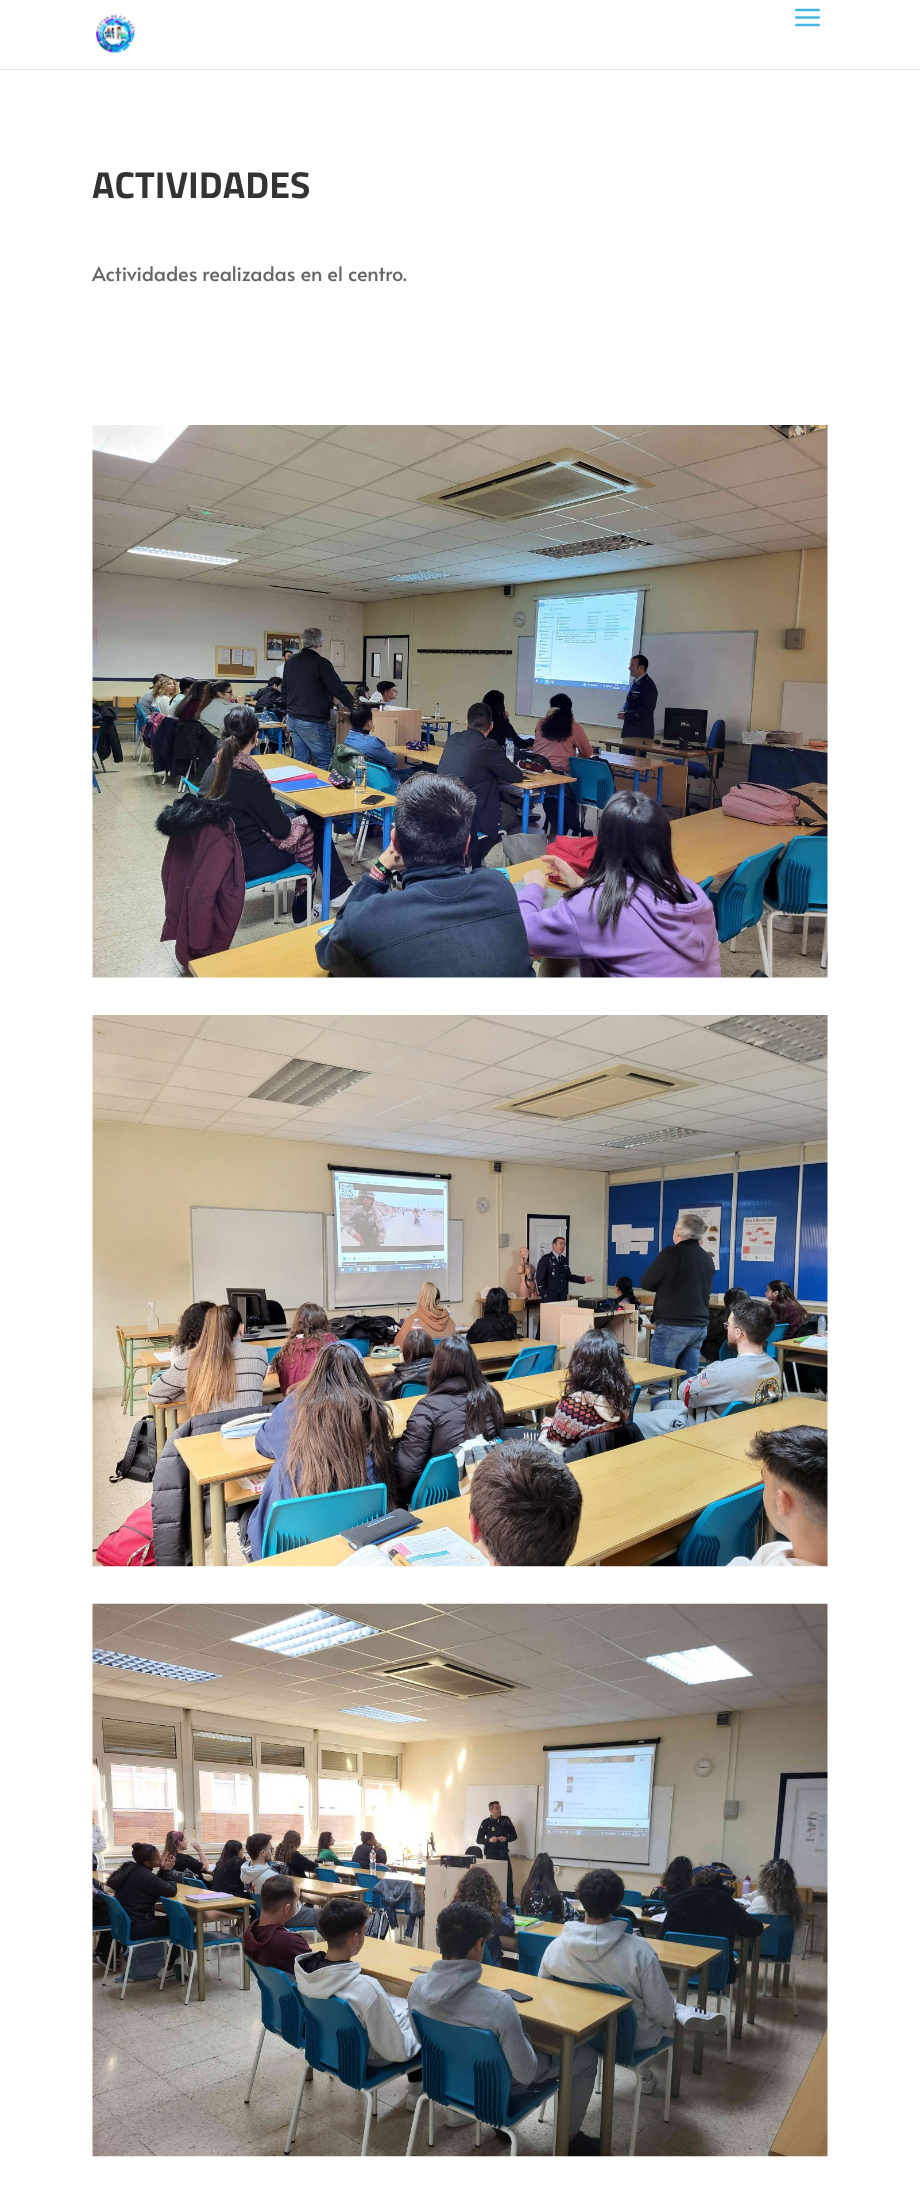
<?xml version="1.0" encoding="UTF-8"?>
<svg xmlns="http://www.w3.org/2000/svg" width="920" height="2203">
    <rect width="100%" height="100%" fill="#FFFFFF"/>
    <rect x="0" y="69" width="920" height="1" fill="#E6E6E6"/>
    <image x="96" y="14" width="40" height="39" href="img_01.png"/>
    <image x="795" y="8" width="25" height="19" href="img_02.png"/>
    <text x="92" y="198" font-family="Sunflower" font-size="37.5" font-weight="700" fill="#333333">ACTIVIDADES</text>
    <text x="92" y="281" font-family="Alata" font-size="20" fill="#666666">Actividades realizadas en el centro.</text>
    <image x="92" y="425" width="736" height="553" href="img_03.png"/>
    <image x="92" y="1015" width="736" height="552" href="img_04.png"/>
    <image x="92" y="1603" width="736" height="554" href="img_05.png"/>
</svg>
